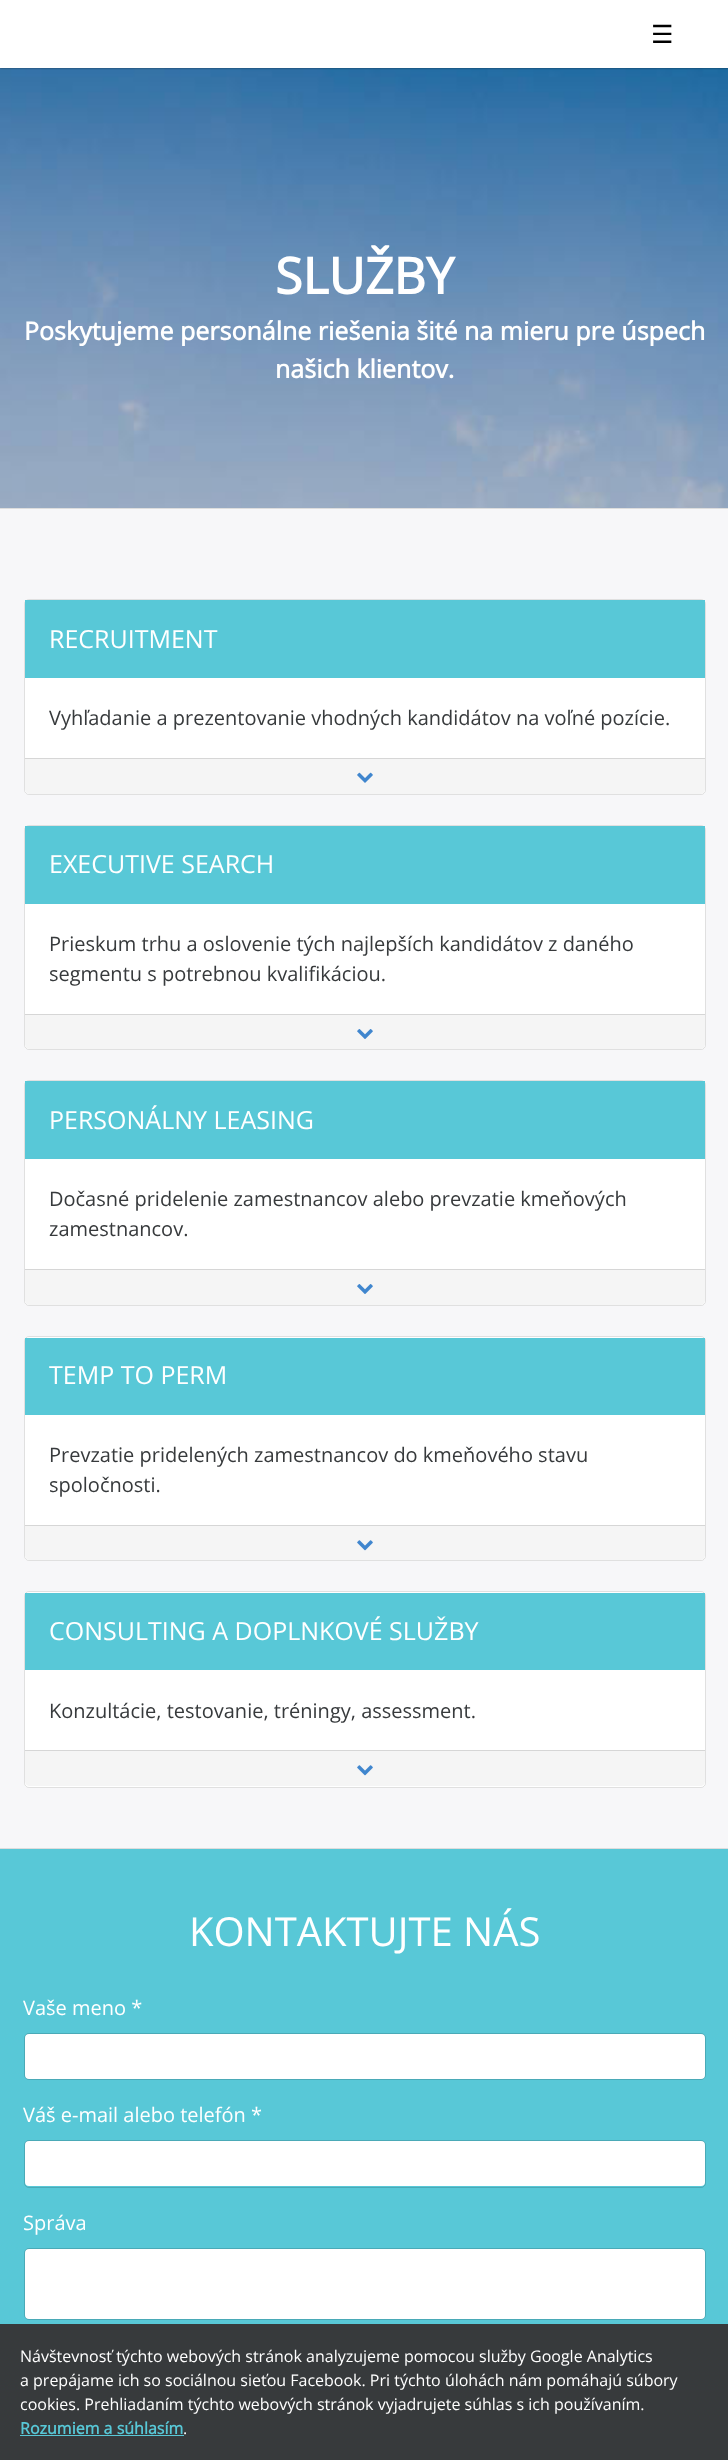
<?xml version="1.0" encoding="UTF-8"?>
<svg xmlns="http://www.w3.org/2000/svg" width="728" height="2460">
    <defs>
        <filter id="blur1" x="-50%" y="-200%" width="200%" height="500%"><feGaussianBlur stdDeviation="1"/></filter>
    </defs>
    <rect width="100%" height="100%" fill="#FFFFFF"/>
    <image x="0" y="68" width="728" height="440" href="img_01.png"/>
    <rect x="0" y="0" width="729" height="68" fill="#000000" fill-opacity="0.5" filter="url(#blur1)"/>
    <rect x="0" y="0" width="728" height="68" fill="#FFFFFF"/>
    <text x="651" y="43" font-family="DejaVu Sans" font-size="25" fill="#000000">☰</text>
    <text x="275" y="294" font-family="Open Sans" font-size="50" font-weight="700" fill="#FFFFFF">SLUŽBY</text>
    <text x="24" y="340" font-family="Open Sans" font-size="25" font-weight="700" fill="#FFFFFF">Poskytujeme personálne riešenia šité na mieru pre úspech</text>
    <text x="275" y="378" font-family="Open Sans" font-size="25" font-weight="700" fill="#FFFFFF">našich klientov.</text>
    <rect x="0" y="509" width="728" height="1339" fill="#F7F7F9"/>
    <rect x="0" y="508" width="728" height="1" fill="#DDDDDD"/>
    <rect x="0" y="1848" width="728" height="1" fill="#DDDDDD"/>
    <rect x="24" y="599" width="682" height="196" rx="5" fill="#FFFFFF"/>
    <rect x="24.5" y="599.5" width="681" height="195" rx="4.5" fill="none" stroke="#000000" stroke-opacity="0.12"/>
    <rect x="25" y="600" width="680" height="78" fill="#58C8D7"/>
    <text x="49" y="648" font-family="Open Sans" font-size="25" fill="#FFFFFF">RECRUITMENT</text>
    <text x="49" y="725" font-family="Open Sans" font-size="20" fill="#373A3C">Vyhľadanie a prezentovanie vhodných kandidátov na voľné pozície.</text>
    <path d="M 25 758 H 705 V 789 C 705 792 703 794 700 794 H 30 C 27 794 25 792 25 789 Z" fill="#F5F5F5"/>
    <rect x="25" y="758" width="680" height="1" fill="#D6D6D6"/>
    <image x="357" y="772" width="16" height="11" href="img_02.png"/>
    <rect x="24" y="825" width="682" height="225" rx="5" fill="#FFFFFF"/>
    <rect x="24.5" y="825.5" width="681" height="224" rx="4.5" fill="none" stroke="#000000" stroke-opacity="0.12"/>
    <rect x="25" y="826" width="680" height="78" fill="#58C8D7"/>
    <text x="49" y="873" font-family="Open Sans" font-size="25" fill="#FFFFFF">EXECUTIVE SEARCH</text>
    <text font-family="Open Sans" font-size="20" fill="#373A3C">
        <tspan x="49" y="951">Prieskum trhu a oslovenie tých najlepších kandidátov z daného</tspan>
        <tspan x="49" y="981">segmentu s potrebnou kvalifikáciou.</tspan>
    </text>
    <path d="M 25 1014 H 705 V 1044 C 705 1047 703 1049 700 1049 H 30 C 27 1049 25 1047 25 1044 Z" fill="#F5F5F5"/>
    <rect x="25" y="1014" width="680" height="1" fill="#D6D6D6"/>
    <image x="357" y="1029" width="16" height="10" href="img_03.png"/>
    <rect x="24" y="1080" width="682" height="226" rx="5" fill="#FFFFFF"/>
    <rect x="24.5" y="1080.5" width="681" height="225" rx="4.5" fill="none" stroke="#000000" stroke-opacity="0.12"/>
    <rect x="25" y="1081" width="680" height="78" fill="#58C8D7"/>
    <text x="49" y="1129" font-family="Open Sans" font-size="25" fill="#FFFFFF">PERSONÁLNY LEASING</text>
    <text font-family="Open Sans" font-size="20" fill="#373A3C">
        <tspan x="49" y="1206">Dočasné pridelenie zamestnancov alebo prevzatie kmeňových</tspan>
        <tspan x="49" y="1236">zamestnancov.</tspan>
    </text>
    <path d="M 25 1269 H 705 V 1300 C 705 1303 703 1305 700 1305 H 30 C 27 1305 25 1303 25 1300 Z" fill="#F5F5F5"/>
    <rect x="25" y="1269" width="680" height="1" fill="#D6D6D6"/>
    <image x="357" y="1284" width="16" height="10" href="img_03.png"/>
    <rect x="24" y="1336" width="682" height="225" rx="5" fill="#FFFFFF"/>
    <rect x="24.5" y="1336.5" width="681" height="224" rx="4.5" fill="none" stroke="#000000" stroke-opacity="0.12"/>
    <rect x="25" y="1338" width="680" height="77" fill="#58C8D7"/>
    <text x="49" y="1384" font-family="Open Sans" font-size="25" fill="#FFFFFF">TEMP TO PERM</text>
    <text font-family="Open Sans" font-size="20" fill="#373A3C">
        <tspan x="49" y="1462">Prevzatie pridelených zamestnancov do kmeňového stavu</tspan>
        <tspan x="49" y="1492">spoločnosti.</tspan>
    </text>
    <path d="M 25 1525 H 705 V 1555 C 705 1558 703 1560 700 1560 H 30 C 27 1560 25 1558 25 1555 Z" fill="#F5F5F5"/>
    <rect x="25" y="1525" width="680" height="1" fill="#D6D6D6"/>
    <image x="357" y="1540" width="16" height="11" href="img_04.png"/>
    <rect x="24" y="1591" width="682" height="197" rx="5" fill="#FFFFFF"/>
    <rect x="24.5" y="1591.5" width="681" height="196" rx="4.5" fill="none" stroke="#000000" stroke-opacity="0.12"/>
    <rect x="25" y="1593" width="680" height="77" fill="#58C8D7"/>
    <text x="49" y="1640" font-family="Open Sans" font-size="25" fill="#FFFFFF">CONSULTING A DOPLNKOVÉ SLUŽBY</text>
    <text x="49" y="1718" font-family="Open Sans" font-size="20" fill="#373A3C">Konzultácie, testovanie, tréningy, assessment.</text>
    <path d="M 25 1750 H 705 V 1781 C 705 1784 703 1786 700 1786 H 30 C 27 1786 25 1784 25 1781 Z" fill="#F5F5F5"/>
    <rect x="25" y="1750" width="680" height="1" fill="#D6D6D6"/>
    <image x="357" y="1765" width="16" height="11" href="img_04.png"/>
    <rect x="0" y="1849" width="728" height="475" fill="#58C8D7"/>
    <text x="189" y="1946" font-family="Open Sans" font-size="40" fill="#FFFFFF">KONTAKTUJTE NÁS</text>
    <text x="23" y="2015" font-family="Open Sans" font-size="20" fill="#FFFFFF">Vaše meno *</text>
    <rect x="25" y="2034" width="680" height="45" rx="4" fill="#FFFFFF"/>
    <rect x="24.5" y="2033.5" width="681" height="46" rx="4.5" fill="none" stroke="#000000" stroke-opacity="0.15"/>
    <text x="23" y="2122" font-family="Open Sans" font-size="20" fill="#FFFFFF">Váš e-mail alebo telefón *</text>
    <rect x="25" y="2141" width="680" height="45" rx="4" fill="#FFFFFF"/>
    <rect x="24.5" y="2140.5" width="681" height="47" rx="4.5" fill="none" stroke="#000000" stroke-opacity="0.15"/>
    <text x="23" y="2230" font-family="Open Sans" font-size="20" fill="#FFFFFF">Správa</text>
    <rect x="25" y="2249" width="680" height="70" rx="4" fill="#FFFFFF"/>
    <rect x="24.5" y="2248.5" width="681" height="71" rx="4.5" fill="none" stroke="#000000" stroke-opacity="0.15"/>
    <rect x="0" y="2324" width="728" height="136" fill="#373A3C"/>
    <text font-family="Open Sans" font-size="16" fill="#FFFFFF">
        <tspan x="20" y="2362">Návštevnosť týchto webových stránok analyzujeme pomocou služby Google Analytics</tspan>
        <tspan x="20" y="2386">a prepájame ich so sociálnou sieťou Facebook. Pri týchto úlohách nám pomáhajú súbory</tspan>
        <tspan x="20" y="2410">cookies. Prehliadaním týchto webových stránok vyjadrujete súhlas s ich používaním.</tspan>
    </text>
    <text x="20" y="2434" font-family="Open Sans" font-size="16" font-weight="700" fill="#58C8D7">Rozumiem a súhlasím</text>
    <rect x="20" y="2435" width="164" height="1" fill="#58C8D7"/>
    <text x="183" y="2434" font-family="Open Sans" font-size="16" fill="#FFFFFF">.</text>
</svg>
